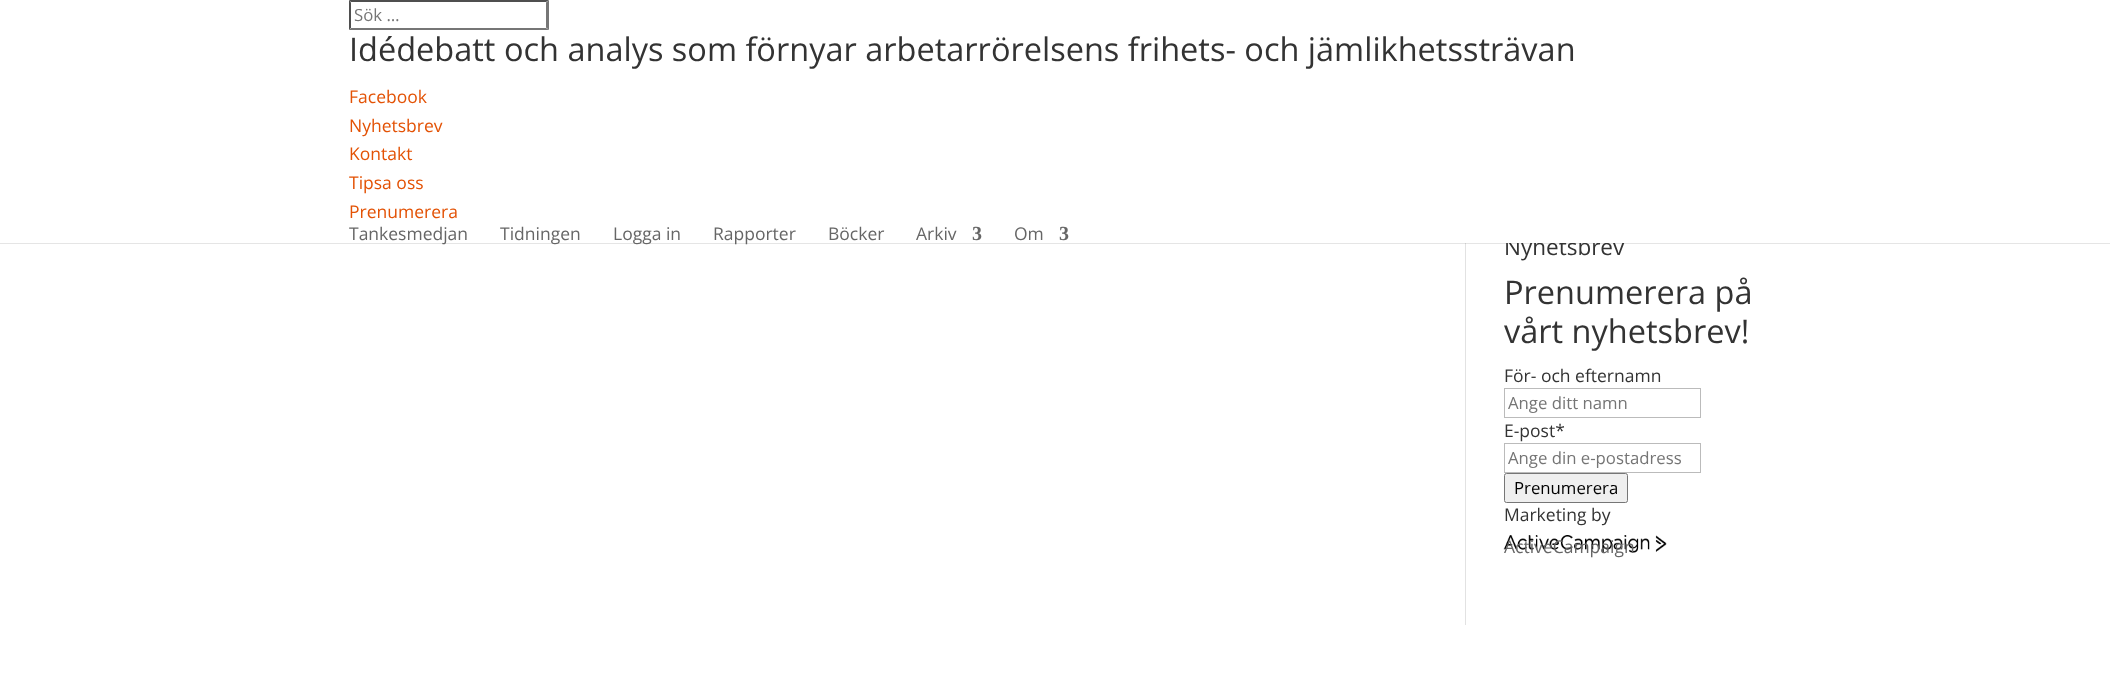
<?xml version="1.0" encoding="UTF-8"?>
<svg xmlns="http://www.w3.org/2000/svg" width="2110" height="689">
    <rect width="100%" height="100%" fill="#FFFFFF"/>
    <rect x="1465" y="243" width="1" height="382" fill="#E2E2E2"/>
    <rect x="0" y="243" width="2110" height="1" fill="#000000" fill-opacity="0.1"/>
    <text x="1504" y="255" font-family="Open Sans" font-size="22.5" fill="#333333">Nyhetsbrev</text>
    <rect x="1506" y="237" width="118" height="6" fill="#FFFFFF"/>
    <path d="M 349 0 H 549 L 546 2 H 351 Z" fill="#4F4F4F"/>
    <path d="M 549 0 V 30 L 546 27.5 V 2.5 Z" fill="#767676"/>
    <path d="M 549 30 H 349 L 351 28 H 546 Z" fill="#767676"/>
    <path d="M 349 30 V 0 L 351 2.5 V 27.5 Z" fill="#4F4F4F"/>
    <text x="354" y="21" font-family="Open Sans" font-size="16.75" fill="#757575">Sök …</text>
    <text x="349" y="61" font-family="Open Sans" font-size="32.5" fill="#333333">Idédebatt och analys som förnyar arbetarrörelsens frihets- och jämlikhetssträvan</text>
    <text font-family="Open Sans" font-size="17.5" fill="#E35205">
        <tspan x="349" y="103">Facebook</tspan>
        <tspan x="349" y="132">Nyhetsbrev</tspan>
        <tspan x="349" y="160">Kontakt</tspan>
        <tspan x="349" y="189">Tipsa oss</tspan>
        <tspan x="349" y="218">Prenumerera</tspan>
    </text>
    <text x="349" y="240" font-family="Open Sans" font-size="17.5" fill="#666666">Tankesmedjan</text>
    <text x="500" y="240" font-family="Open Sans" font-size="17.5" fill="#666666">Tidningen</text>
    <text x="613" y="240" font-family="Open Sans" font-size="17.5" fill="#666666">Logga in</text>
    <text x="713" y="240" font-family="Open Sans" font-size="17.5" fill="#666666">Rapporter</text>
    <text x="828" y="240" font-family="Open Sans" font-size="17.5" fill="#666666">Böcker</text>
    <text x="916" y="240" font-family="Open Sans" font-size="17.5" fill="#666666">Arkiv</text>
    <text x="972" y="240" font-family="Liberation Serif" font-size="20" font-weight="700" fill="#666666">3</text>
    <text x="1014" y="240" font-family="Open Sans" font-size="17.5" fill="#666666">Om</text>
    <text x="1059" y="240" font-family="Liberation Serif" font-size="20" font-weight="700" fill="#666666">3</text>
    <text font-family="Open Sans" font-size="32.5" fill="#333333">
        <tspan x="1504" y="304">Prenumerera på</tspan>
        <tspan x="1504" y="343">vårt nyhetsbrev!</tspan>
    </text>
    <text x="1504" y="382" font-family="Open Sans" font-size="17.5" fill="#333333">För- och efternamn</text>
    <rect x="1504.5" y="388.5" width="196" height="29" fill="none" stroke="#BBBBBB"/>
    <text x="1508" y="409" font-family="Open Sans" font-size="16.75" fill="#757575">Ange ditt namn</text>
    <text x="1504" y="437" font-family="Open Sans" font-size="17.5" fill="#333333">E-post*</text>
    <rect x="1504.5" y="443.5" width="196" height="29" fill="none" stroke="#BBBBBB"/>
    <text x="1508" y="464" font-family="Open Sans" font-size="16.75" fill="#757575">Ange din e-postadress</text>
    <rect x="1504.5" y="473.5" width="123" height="29" rx="2" fill="#EFEFEF" stroke="#767676"/>
    <text x="1514" y="494" font-family="Open Sans" font-size="16.75" fill="#000000">Prenumerera</text>
    <text x="1504" y="521" font-family="Open Sans" font-size="17.5" fill="#333333">Marketing by</text>
    <image x="1503" y="535" width="164" height="18" href="img_01.png"/>
    <text x="1504" y="553" font-family="Open Sans" font-size="17.5" fill="#666666">ActiveCampaign</text>
</svg>
